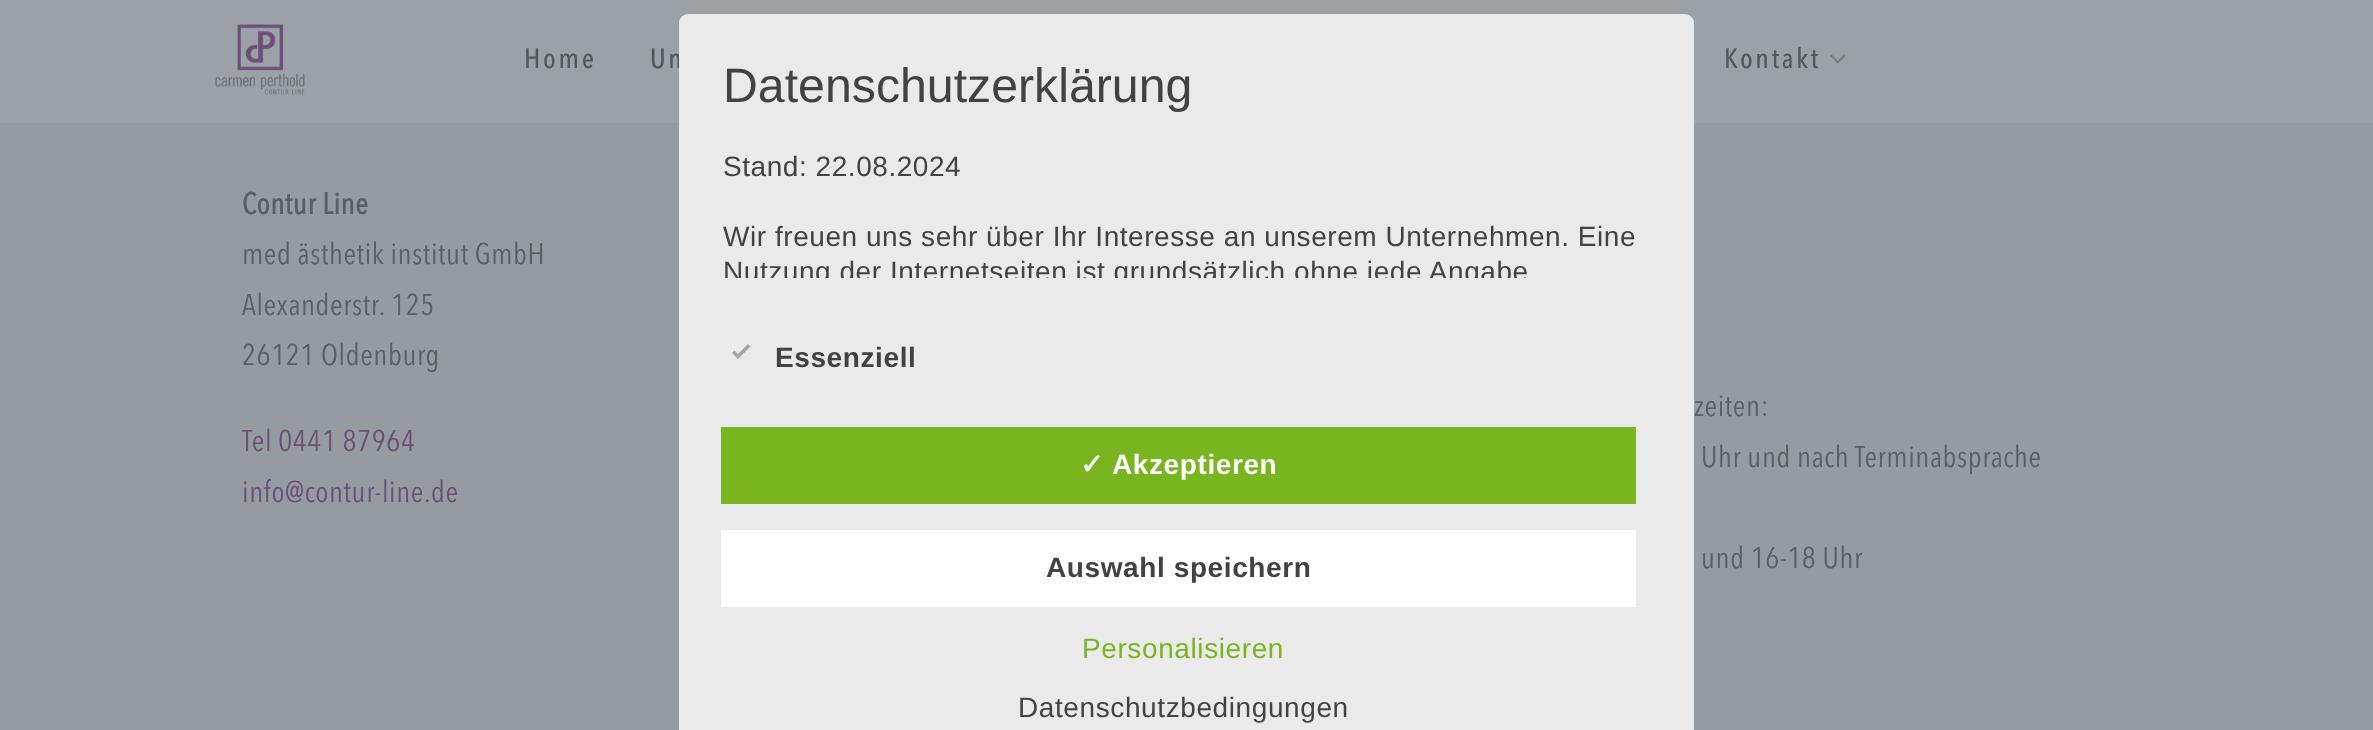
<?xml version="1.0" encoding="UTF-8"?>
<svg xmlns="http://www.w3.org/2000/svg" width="2373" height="730">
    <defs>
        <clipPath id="clip1"><rect x="723" y="58" width="945" height="220"/></clipPath>
    </defs>
    <rect width="100%" height="100%" fill="#959CA1"/>
    <rect x="0" y="0" width="2373" height="123" fill="#9BA2A7"/>
    <image x="215" y="24" width="90" height="71" href="img_01.png"/>
    <text x="524" y="68" font-family="Avenir Next" font-size="28" font-weight="500" letter-spacing="2.75" fill="#51595D">Home</text>
    <text x="650" y="68" font-family="Avenir Next" font-size="28" font-weight="500" letter-spacing="2.75" fill="#51595D">Un</text>
    <text x="1724" y="68" font-family="Avenir Next" font-size="28" font-weight="500" letter-spacing="2.75" fill="#51595D">Kontakt</text>
    <image x="1830" y="54" width="16" height="10" href="img_02.png"/>
    <text x="242" y="214" font-family="Avenir Next" font-size="29.75" font-weight="700" letter-spacing="0.6" fill="#596065">Contur Line</text>
    <text font-family="Avenir Next" font-size="29.75" letter-spacing="0.6" fill="#596065">
        <tspan x="242" y="264">med ästhetik institut GmbH</tspan>
        <tspan x="242" y="315">Alexanderstr. 125</tspan>
        <tspan x="242" y="365">26121 Oldenburg</tspan>
    </text>
    <text font-family="Avenir Next" font-size="29.75" letter-spacing="0.6" fill="#6C4F77">
        <tspan x="242" y="451">Tel 0441 87964</tspan>
        <tspan x="242" y="502">info@contur-line.de</tspan>
    </text>
    <text x="1694" y="416" font-family="Avenir Next" font-size="29.75" letter-spacing="0.6" fill="#596065">zeiten:</text>
    <text x="1701" y="467" font-family="Avenir Next" font-size="29.75" letter-spacing="0.6" fill="#596065">Uhr und nach Terminabsprache</text>
    <text x="1701" y="568" font-family="Avenir Next" font-size="29.75" letter-spacing="0.6" fill="#596065">und 16-18 Uhr</text>
    <rect x="679" y="14" width="1015" height="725" rx="9" fill="#EAEAEA"/>
    <text x="723" y="102" font-family="Liberation Sans" font-size="48.25" fill="#424242">Datenschutzerklärung</text>
    <text x="723" y="176" font-family="Liberation Sans" font-size="28" letter-spacing="0.55" fill="#424242">Stand: 22.08.2024</text>
    <text x="723" y="246" font-family="Liberation Sans" font-size="28" letter-spacing="0.55" fill="#424242">Wir freuen uns sehr über Ihr Interesse an unserem Unternehmen. Eine</text>
    <g clip-path="url(#clip1)">
        <text x="723" y="281" font-family="Liberation Sans" font-size="28" letter-spacing="0.55" fill="#424242">Nutzung der Internetseiten ist grundsätzlich ohne jede Angabe</text>
    </g>
    <path d="M 748 344 L 750.5 346.5 L 738 359 L 735.5 356.5 Z" fill="#A7A7A7"/>
    <path d="M 734.5 350.5 L 740.5 356.5 L 738 359 L 732 353 Z" fill="#A7A7A7"/>
    <text x="775" y="367" font-family="Liberation Sans" font-size="28" font-weight="700" letter-spacing="0.6" fill="#424242">Essenziell</text>
    <rect x="721" y="427" width="915" height="77" fill="#79B51F"/>
    <text x="1080" y="474" font-family="DejaVu Sans" font-size="28" font-weight="700" letter-spacing="0.6" fill="#FFFFFF">✓</text>
    <text x="1112" y="474" font-family="Liberation Sans" font-size="28" font-weight="700" letter-spacing="0.6" fill="#FFFFFF">Akzeptieren</text>
    <rect x="721" y="530" width="915" height="77" fill="#FFFFFF"/>
    <text x="1046" y="577" font-family="Liberation Sans" font-size="28" font-weight="700" letter-spacing="0.6" fill="#424242">Auswahl speichern</text>
    <text x="1082" y="658" font-family="Liberation Sans" font-size="28" letter-spacing="0.6" fill="#79B51F">Personalisieren</text>
    <text x="1018" y="717" font-family="Liberation Sans" font-size="28" letter-spacing="0.6" fill="#424242">Datenschutzbedingungen</text>
</svg>
